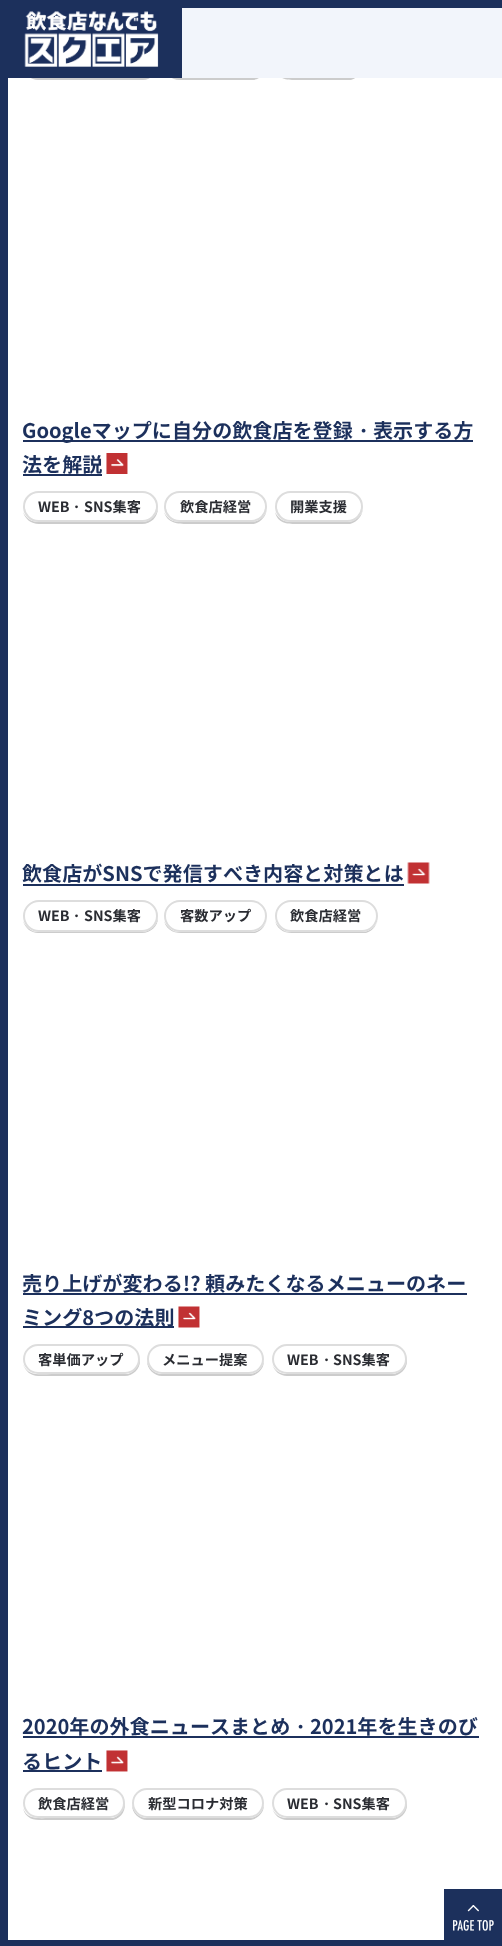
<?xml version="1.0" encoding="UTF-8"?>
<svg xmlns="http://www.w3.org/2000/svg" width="502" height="1946">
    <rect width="100%" height="100%" fill="#FFFFFF"/>
    <rect x="0" y="0" width="502" height="8" fill="#1C305C"/>
    <path d="M 164 68 C 166 75 172 80 179 80 H 252 C 260 80 267 73 267 65 V 64 C 266 72 260 78 252 78 H 178 C 172 78 166 74 164 68 Z" fill="#CCCCCC"/>
    <path d="M 275 68 C 278 81 289 80 300 80 H 351 C 358 78 363 71 363 64 C 362 72 356 78 348 78 H 290 C 283 78 277 74 275 68 Z" fill="#CCCCCC"/>
    <rect x="182" y="8" width="320" height="70" fill="#F2F5FB"/>
    <path d="M 23 68 C 25 75 31 80 38 80 H 143 C 151 80 158 73 158 65 L 157 60 L 158 63 C 158 71 151 78 142 78 H 38 C 31 78 25 74 23 68 Z" fill="#CCCCCC"/>
    <rect x="8" y="8" width="174" height="70" fill="#1C305C"/>
    <image x="24" y="11" width="135" height="56" href="img_01.png"/>
    <rect x="0" y="0" width="8" height="1946" fill="#1C305C"/>
    <rect x="23" y="440" width="450" height="2" fill="#1C305C"/>
    <text x="22" y="438" font-family="Noto Sans CJK JP" font-size="20.1" font-weight="700" fill="#1C305C">Googleマップに自分の飲食店を登録</text>
    <text x="353" y="438" font-family="WenQuanYi Zen Hei" font-size="20.1" font-weight="700" fill="#1C305C">・</text>
    <text x="373" y="438" font-family="Noto Sans CJK JP" font-size="20.1" font-weight="700" fill="#1C305C">表示する方</text>
    <text x="22" y="472" font-family="Noto Sans CJK JP" font-size="20.1" font-weight="700" fill="#1C305C">法を解説</text>
    <rect x="23" y="474" width="79" height="2" fill="#1C305C"/>
    <image x="106" y="453" width="22" height="21" href="img_02.png"/>
    <path d="M 23 512 C 25 519 31 524 39 524 H 142 C 151 524 158 517 158 508 L 157 503 L 158 506 C 158 515 150 522 142 522 H 38 C 31 522 26 518 23 512 Z" fill="#CCCCCC"/>
    <rect x="24" y="492" width="133" height="29" rx="14.5" fill="#FFFFFF" stroke="#DDDDDD" stroke-width="2"/>
    <text x="38" y="512" font-family="Noto Sans CJK JP" font-size="14.25" font-weight="700" fill="#2A2C32">WEB</text>
    <text x="69" y="512" font-family="WenQuanYi Zen Hei" font-size="14.25" font-weight="700" fill="#2A2C32">・</text>
    <text x="84" y="512" font-family="Noto Sans CJK JP" font-size="14.25" font-weight="700" fill="#2A2C32">SNS集客</text>
    <path d="M 164 512 C 168 525 181 524 192 524 H 254 C 262 522 267 515 267 507 C 267 515 260 522 251 522 H 179 C 172 522 167 518 164 512 Z" fill="#CCCCCC"/>
    <rect x="165" y="492" width="101" height="29" rx="14.5" fill="#FFFFFF" stroke="#DDDDDD" stroke-width="2"/>
    <text x="180" y="512" font-family="Noto Sans CJK JP" font-size="14.25" font-weight="700" fill="#2A2C32">飲食店経営</text>
    <path d="M 275 512 C 278 525 290 524 300 524 H 350 C 358 522 363 515 363 507 C 363 515 356 522 347 522 H 290 C 283 522 278 518 275 512 Z" fill="#CCCCCC"/>
    <rect x="276" y="492" width="86" height="29" rx="14.5" fill="#FFFFFF" stroke="#DDDDDD" stroke-width="2"/>
    <text x="290" y="512" font-family="Noto Sans CJK JP" font-size="14.25" font-weight="700" fill="#2A2C32">開業支援</text>
    <text x="22" y="881" font-family="Noto Sans CJK JP" font-size="20.1" font-weight="700" fill="#1C305C">飲食店がSNSで発信すべき内容と対策とは</text>
    <rect x="23" y="884" width="381" height="2" fill="#1C305C"/>
    <image x="407" y="862" width="23" height="22" href="img_03.png"/>
    <path d="M 23 921 C 25 928 31 933 38 933 H 142 C 151 933 158 926 158 918 L 157 912 L 158 916 C 158 925 150 932 142 932 H 38 C 31 932 26 927 23 921 Z" fill="#CCCCCC"/>
    <rect x="24" y="901" width="133" height="30" rx="15" fill="#FFFFFF" stroke="#DDDDDD" stroke-width="2"/>
    <text x="38" y="921" font-family="Noto Sans CJK JP" font-size="14.25" font-weight="700" fill="#2A2C32">WEB</text>
    <text x="69" y="921" font-family="WenQuanYi Zen Hei" font-size="14.25" font-weight="700" fill="#2A2C32">・</text>
    <text x="84" y="921" font-family="Noto Sans CJK JP" font-size="14.25" font-weight="700" fill="#2A2C32">SNS集客</text>
    <path d="M 164 921 C 168 935 181 933 192 933 H 255 C 262 931 267 924 267 917 C 267 925 260 932 251 932 H 179 C 172 932 167 927 164 921 Z" fill="#CCCCCC"/>
    <rect x="165" y="901" width="101" height="30" rx="15" fill="#FFFFFF" stroke="#DDDDDD" stroke-width="2"/>
    <text x="180" y="921" font-family="Noto Sans CJK JP" font-size="14.25" font-weight="700" fill="#2A2C32">客数アップ</text>
    <path d="M 275 921 C 279 935 292 933 302 933 H 366 C 373 931 378 924 378 917 C 378 925 371 932 362 932 H 290 C 283 932 278 927 275 921 Z" fill="#CCCCCC"/>
    <rect x="276" y="901" width="101" height="30" rx="15" fill="#FFFFFF" stroke="#DDDDDD" stroke-width="2"/>
    <text x="290" y="921" font-family="Noto Sans CJK JP" font-size="14.25" font-weight="700" fill="#2A2C32">飲食店経営</text>
    <text x="22" y="1291" font-family="Noto Sans CJK JP" font-size="20.1" font-weight="700" fill="#1C305C">売り上げが変わる!? 頼みたくなるメニューのネー</text>
    <rect x="23" y="1293" width="444" height="2" fill="#1C305C"/>
    <rect x="23" y="1326" width="151" height="2" fill="#1C305C"/>
    <text x="22" y="1325" font-family="Noto Sans CJK JP" font-size="20.1" font-weight="700" fill="#1C305C">ミング8つの法則</text>
    <image x="178" y="1306" width="22" height="22" href="img_04.png"/>
    <path d="M 23 1364 C 25 1371 31 1376 38 1376 H 125 C 133 1376 140 1369 140 1361 L 139 1356 C 141 1364 135 1372 128 1374 H 52 C 41 1374 28 1377 23 1364 Z" fill="#CCCCCC"/>
    <rect x="24" y="1345" width="115" height="28" rx="14" fill="#FFFFFF" stroke="#DDDDDD" stroke-width="2"/>
    <text x="38" y="1365" font-family="Noto Sans CJK JP" font-size="14.25" font-weight="700" fill="#2A2C32">客単価アップ</text>
    <path d="M 147 1360 V 1361 C 147 1369 154 1376 162 1376 H 249 C 257 1376 264 1369 264 1361 V 1360 C 263 1368 257 1374 249 1374 H 162 C 154 1374 148 1368 147 1360 Z" fill="#CCCCCC"/>
    <rect x="148" y="1345" width="115" height="28" rx="14" fill="#FFFFFF" stroke="#DDDDDD" stroke-width="2"/>
    <text x="162" y="1365" font-family="Noto Sans CJK JP" font-size="14.25" font-weight="700" fill="#2A2C32">メニュー提案</text>
    <path d="M 272 1364 C 274 1371 280 1376 287 1376 H 392 C 400 1376 407 1369 407 1361 L 406 1356 V 1359 C 406 1367 400 1374 392 1374 H 286 C 280 1374 274 1370 272 1364 Z" fill="#CCCCCC"/>
    <rect x="273" y="1345" width="133" height="28" rx="14" fill="#FFFFFF" stroke="#DDDDDD" stroke-width="2"/>
    <text x="287" y="1365" font-family="Noto Sans CJK JP" font-size="14.25" font-weight="700" fill="#2A2C32">WEB</text>
    <text x="319" y="1365" font-family="WenQuanYi Zen Hei" font-size="14.25" font-weight="700" fill="#2A2C32">・</text>
    <text x="333" y="1365" font-family="Noto Sans CJK JP" font-size="14.25" font-weight="700" fill="#2A2C32">SNS集客</text>
    <text x="22" y="1734" font-family="Noto Sans CJK JP" font-size="20.1" font-weight="700" fill="#1C305C">2020年の外食ニュースまとめ</text>
    <text x="290" y="1734" font-family="WenQuanYi Zen Hei" font-size="20.1" font-weight="700" fill="#1C305C">・</text>
    <rect x="23" y="1736" width="456" height="2" fill="#1C305C"/>
    <text x="310" y="1734" font-family="Noto Sans CJK JP" font-size="20.1" font-weight="700" fill="#1C305C">2021年を生きのび</text>
    <rect x="23" y="1770" width="79" height="2" fill="#1C305C"/>
    <text x="22" y="1769" font-family="Noto Sans CJK JP" font-size="20.1" font-weight="700" fill="#1C305C">るヒント</text>
    <image x="106" y="1750" width="22" height="22" href="img_05.png"/>
    <path d="M 23 1808 C 26 1822 39 1820 50 1820 H 113 C 122 1818 127 1809 124 1800 C 126 1808 120 1816 113 1818 H 50 C 39 1818 27 1820 23 1808 Z" fill="#CCCCCC"/>
    <rect x="24" y="1789" width="100" height="28" rx="14" fill="#FFFFFF" stroke="#DDDDDD" stroke-width="2"/>
    <text x="38" y="1809" font-family="Noto Sans CJK JP" font-size="14.25" font-weight="700" fill="#2A2C32">飲食店経営</text>
    <path d="M 132 1804 V 1805 C 132 1813 139 1820 147 1820 H 249 C 257 1820 264 1813 264 1805 V 1804 C 263 1812 257 1818 249 1818 H 147 C 139 1818 133 1812 132 1804 Z" fill="#CCCCCC"/>
    <rect x="133" y="1789" width="130" height="28" rx="14" fill="#FFFFFF" stroke="#DDDDDD" stroke-width="2"/>
    <text x="148" y="1809" font-family="Noto Sans CJK JP" font-size="14.25" font-weight="700" fill="#2A2C32">新型コロナ対策</text>
    <path d="M 272 1808 C 274 1815 280 1820 287 1820 H 392 C 400 1820 407 1813 407 1805 L 406 1800 V 1803 C 406 1811 400 1818 392 1818 H 286 C 280 1818 274 1814 272 1808 Z" fill="#CCCCCC"/>
    <rect x="273" y="1789" width="133" height="28" rx="14" fill="#FFFFFF" stroke="#DDDDDD" stroke-width="2"/>
    <text x="287" y="1809" font-family="Noto Sans CJK JP" font-size="14.25" font-weight="700" fill="#2A2C32">WEB</text>
    <text x="319" y="1809" font-family="WenQuanYi Zen Hei" font-size="14.25" font-weight="700" fill="#2A2C32">・</text>
    <text x="333" y="1809" font-family="Noto Sans CJK JP" font-size="14.25" font-weight="700" fill="#2A2C32">SNS集客</text>
    <rect x="0" y="1940" width="444" height="6" fill="#1C305C"/>
    <rect x="444" y="1889" width="58" height="57" fill="#1C305C"/>
    <image x="453" y="1905" width="41" height="26" href="img_06.png"/>
</svg>
